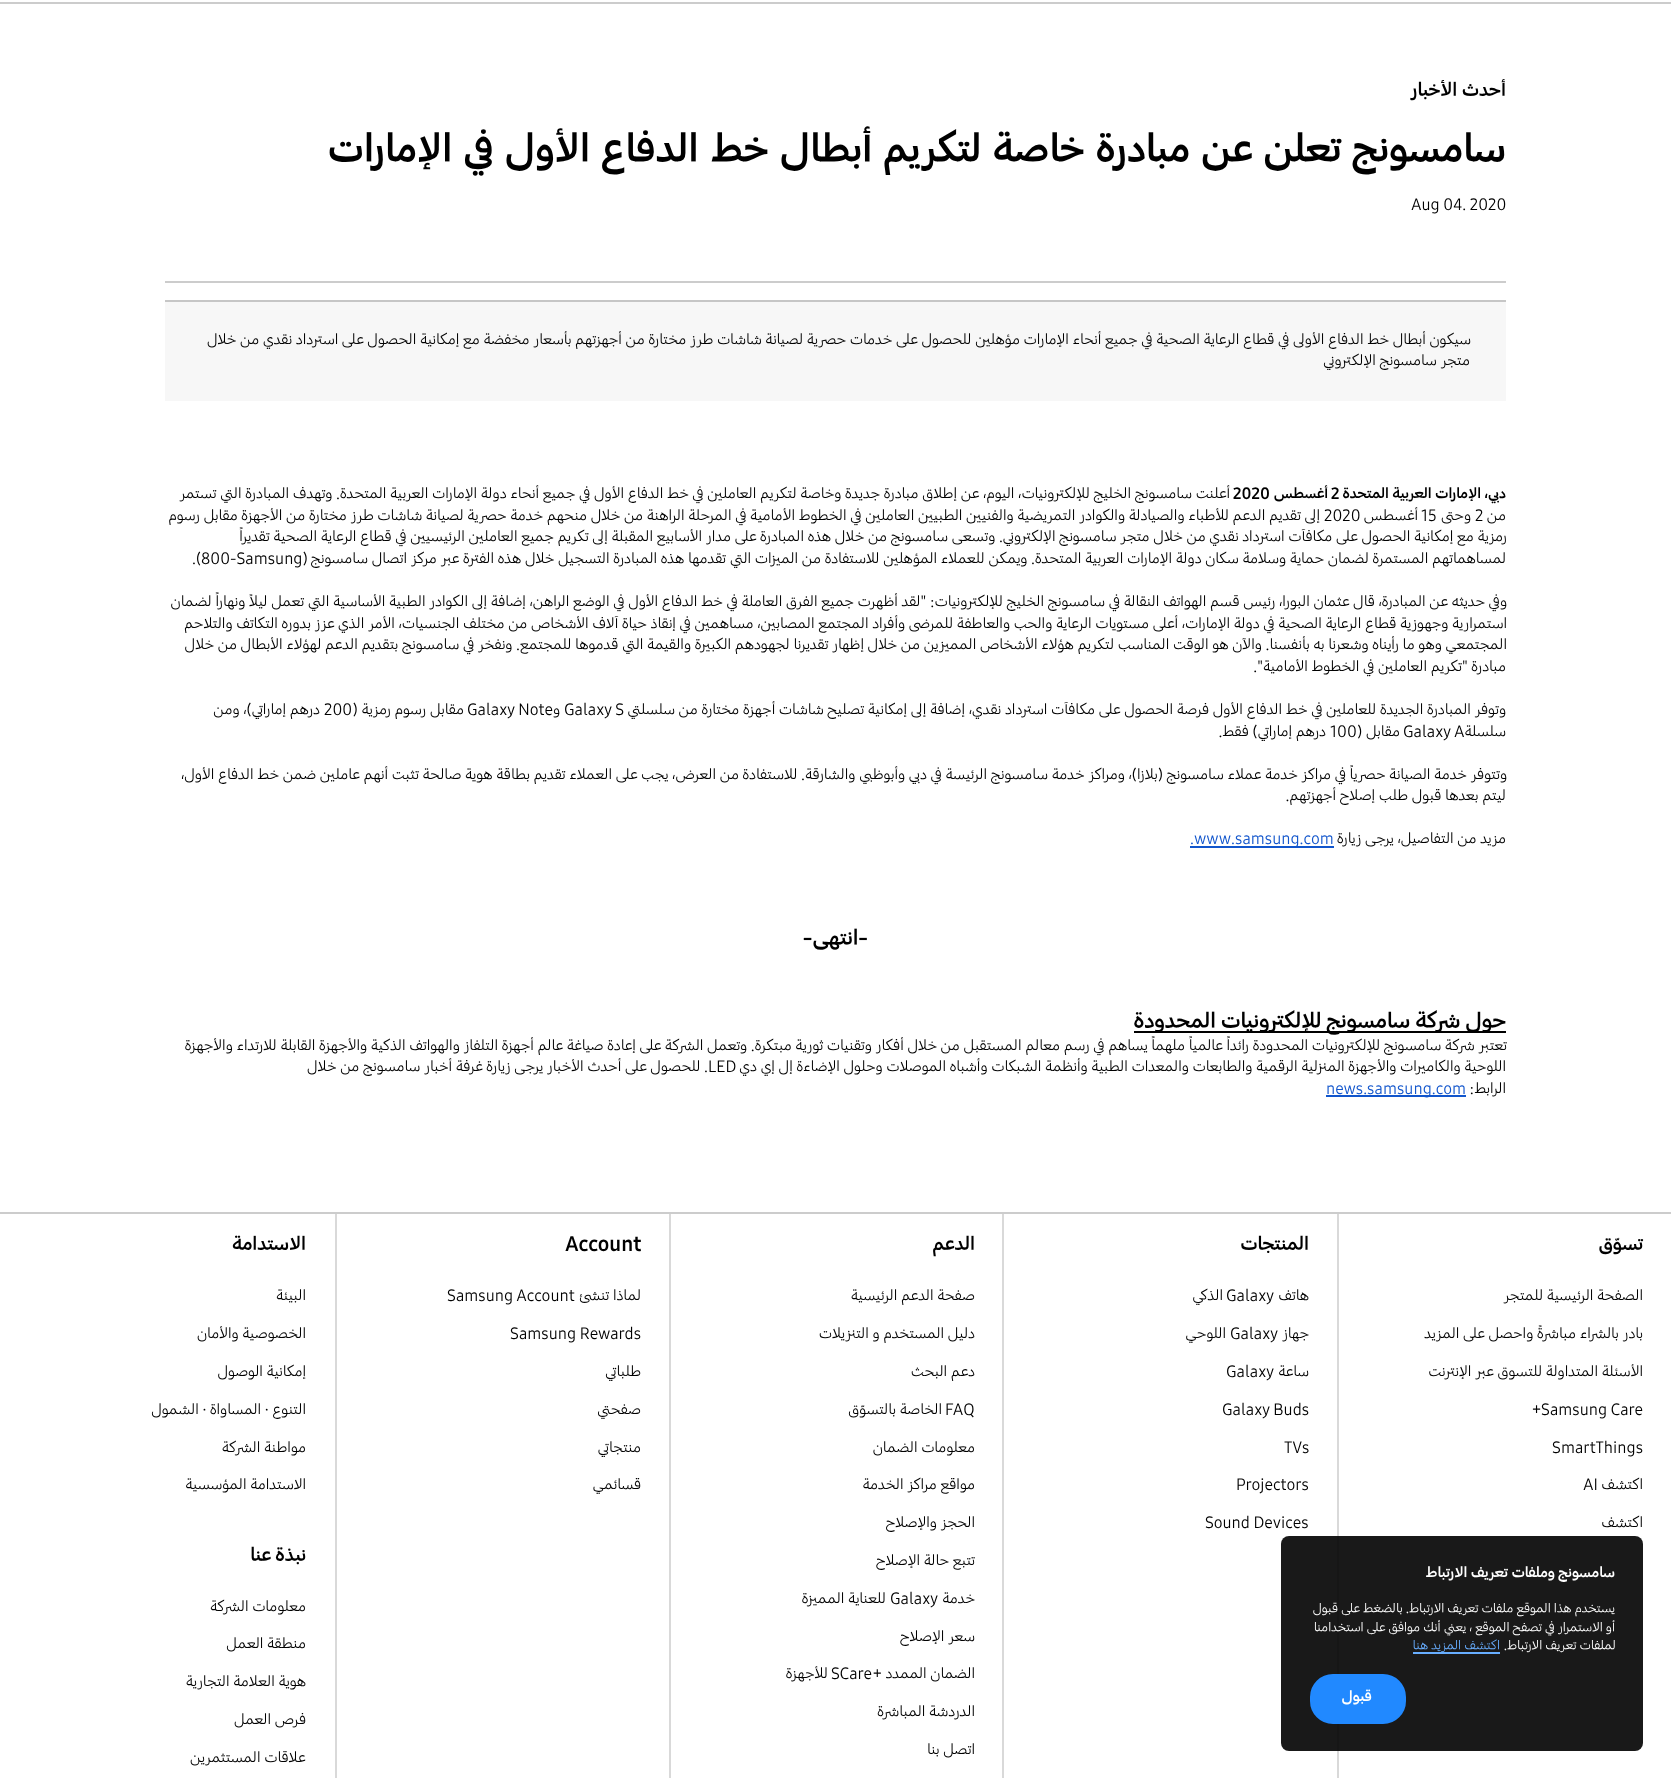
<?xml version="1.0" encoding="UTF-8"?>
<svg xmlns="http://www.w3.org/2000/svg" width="1671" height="1778">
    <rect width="100%" height="100%" fill="#FFFFFF"/>
    <rect x="0" y="2" width="1671" height="2" fill="#CCCCCC"/>
    <text x="1506" y="97" font-family="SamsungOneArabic" font-size="21" font-weight="700" direction="rtl" fill="#000000">أحدث الأخبار</text>
    <text x="1506" y="164" word-spacing="1.75" font-family="SamsungOneArabic" font-size="44.1" font-weight="700" direction="rtl" fill="#000000">سامسونج تعلن عن مبادرة خاصة لتكريم أبطال خط الدفاع الأول في الإمارات</text>
    <text x="1411" y="210" font-family="SamsungOneArabic" font-size="16.25" fill="#000000">Aug 04. 2020</text>
    <rect x="165" y="281" width="1341" height="2" fill="#CCCCCC"/>
    <rect x="165" y="302" width="1341" height="99" fill="#F7F7F7"/>
    <rect x="165" y="300" width="1341" height="2" fill="#C6C6C6"/>
    <text x="1471" y="345" font-family="SamsungOneArabic" font-size="16.25" direction="rtl" fill="#000000">سيكون أبطال خط الدفاع الأولى في قطاع الرعاية الصحية في جميع أنحاء الإمارات مؤهلين للحصول على خدمات حصرية لصيانة شاشات طرز مختارة من أجهزتهم بأسعار مخفضة مع إمكانية الحصول على استرداد نقدي من خلال</text>
    <text x="1470" y="366" font-family="SamsungOneArabic" font-size="16.25" direction="rtl" fill="#000000">متجر سامسونج الإلكتروني</text>
    <text x="1506" y="499" font-family="SamsungOneArabic" font-size="16.25" font-weight="700" direction="rtl" fill="#000000">دبي، الإمارات العربية المتحدة</text>
    <text x="1331" y="499" font-family="SamsungOneArabic" font-size="16.25" font-weight="700" fill="#000000">2</text>
    <text x="1328" y="499" font-family="SamsungOneArabic" font-size="16.25" font-weight="700" direction="rtl" fill="#000000">أغسطس</text>
    <text x="1233" y="499" font-family="SamsungOneArabic" font-size="16.25" font-weight="700" fill="#000000">2020</text>
    <text x="1230" y="499" font-family="SamsungOneArabic" font-size="16.25" direction="rtl" fill="#000000">أعلنت سامسونج الخليج للإلكترونيات، اليوم، عن إطلاق مبادرة جديدة وخاصة لتكريم العاملين في خط الدفاع الأول في جميع أنحاء دولة الإمارات العربية المتحدة. وتهدف المبادرة التي تستمر</text>
    <text x="1506" y="521" font-family="SamsungOneArabic" font-size="16.25" direction="rtl" fill="#000000">من</text>
    <text x="1475" y="521" font-family="SamsungOneArabic" font-size="16.25" fill="#000000">2</text>
    <text x="1471" y="521" font-family="SamsungOneArabic" font-size="16.25" direction="rtl" fill="#000000">وحتى</text>
    <text x="1421" y="521" font-family="SamsungOneArabic" font-size="16.25" fill="#000000">15</text>
    <text x="1418" y="521" font-family="SamsungOneArabic" font-size="16.25" direction="rtl" fill="#000000">أغسطس</text>
    <text x="1324" y="521" font-family="SamsungOneArabic" font-size="16.25" fill="#000000">2020</text>
    <text x="1320" y="521" font-family="SamsungOneArabic" font-size="16.25" direction="rtl" fill="#000000">إلى تقديم الدعم للأطباء والصيادلة والكوادر التمريضية والفنيين الطبيين العاملين في الخطوط الأمامية في المرحلة الراهنة من خلال منحهم خدمة حصرية لصيانة شاشات طرز مختارة من الأجهزة مقابل رسوم</text>
    <text x="1507" y="542" font-family="SamsungOneArabic" font-size="16.25" direction="rtl" fill="#000000">رمزية مع إمكانية الحصول على مكافآت استرداد نقدي من خلال متجر سامسونج الإلكتروني. وتسعى سامسونج من خلال هذه المبادرة على مدار الأسابيع المقبلة إلى تكريم جميع العاملين الرئيسيين في قطاع الرعاية الصحية تقديراً</text>
    <text x="1506" y="564" font-family="SamsungOneArabic" font-size="16.25" direction="rtl" fill="#000000">لمساهماتهم المستمرة لضمان حماية وسلامة سكان دولة الإمارات العربية المتحدة. ويمكن للعملاء المؤهلين للاستفادة من الميزات التي تقدمها هذه المبادرة التسجيل خلال هذه الفترة عبر مركز اتصال سامسونج</text>
    <text x="192" y="564" font-family="SamsungOneArabic" font-size="16.25" fill="#000000">.(800-Samsung)</text>
    <text font-family="SamsungOneArabic" font-size="16.25" direction="rtl" fill="#000000">
        <tspan x="1507" y="607">وفي حديثه عن المبادرة، قال عثمان البورا، رئيس قسم الهواتف النقالة في سامسونج الخليج للإلكترونيات: "لقد أظهرت جميع الفرق العاملة في خط الدفاع الأول في الوضع الراهن، إضافة إلى الكوادر الطبية الأساسية التي تعمل ليلاً ونهاراً لضمان</tspan>
        <tspan x="1507" y="629">استمرارية وجهوزية قطاع الرعاية الصحية في دولة الإمارات، أعلى مستويات الرعاية والحب والعاطفة للمرضى وأفراد المجتمع المصابين، مساهمين في إنقاذ حياة آلاف الأشخاص من مختلف الجنسيات، الأمر الذي عزز بدوره التكاتف والتلاحم</tspan>
        <tspan x="1507" y="650">المجتمعي وهو ما رأيناه وشعرنا به بأنفسنا. والآن هو الوقت المناسب لتكريم هؤلاء الأشخاص المميزين من خلال إظهار تقديرنا لجهودهم الكبيرة والقيمة التي قدموها للمجتمع. ونفخر في سامسونج بتقديم الدعم لهؤلاء الأبطال من خلال</tspan>
    </text>
    <text x="1506" y="672" font-family="SamsungOneArabic" font-size="16.25" direction="rtl" fill="#000000">مبادرة "تكريم العاملين في الخطوط الأمامية".</text>
    <text x="1506" y="715" font-family="SamsungOneArabic" font-size="16.25" direction="rtl" fill="#000000">وتوفر المبادرة الجديدة للعاملين في خط الدفاع الأول فرصة الحصول على مكافآت استرداد نقدي، إضافة إلى إمكانية تصليح شاشات أجهزة مختارة من سلسلتي</text>
    <text x="564" y="715" font-family="SamsungOneArabic" font-size="16.25" fill="#000000">Galaxy S</text>
    <text x="560" y="715" font-family="SamsungOneArabic" font-size="16.25" direction="rtl" fill="#000000">و</text>
    <text x="467" y="715" font-family="SamsungOneArabic" font-size="16.25" fill="#000000">Galaxy Note</text>
    <text x="464" y="715" font-family="SamsungOneArabic" font-size="16.25" direction="rtl" fill="#000000">مقابل رسوم رمزية (</text>
    <text x="324" y="715" font-family="SamsungOneArabic" font-size="16.25" fill="#000000">200</text>
    <text x="320" y="715" font-family="SamsungOneArabic" font-size="16.25" direction="rtl" fill="#000000">درهم إماراتي)، ومن</text>
    <text x="1506" y="737" font-family="SamsungOneArabic" font-size="16.25" direction="rtl" fill="#000000">سلسلة</text>
    <text x="1403" y="737" font-family="SamsungOneArabic" font-size="16.25" fill="#000000">Galaxy A</text>
    <text x="1400" y="737" font-family="SamsungOneArabic" font-size="16.25" direction="rtl" fill="#000000">مقابل (</text>
    <text x="1330" y="737" font-family="SamsungOneArabic" font-size="16.25" fill="#000000">100</text>
    <text x="1326" y="737" font-family="SamsungOneArabic" font-size="16.25" direction="rtl" fill="#000000">درهم إماراتي) فقط.</text>
    <text x="1507" y="780" font-family="SamsungOneArabic" font-size="16.25" direction="rtl" fill="#000000">وتتوفر خدمة الصيانة حصرياً في مراكز خدمة عملاء سامسونج (بلازا)، ومراكز خدمة سامسونج الرئيسة في دبي وأبوظبي والشارقة. للاستفادة من العرض، يجب على العملاء تقديم بطاقة هوية صالحة تثبت أنهم عاملين ضمن خط الدفاع الأول،</text>
    <text x="1506" y="801" font-family="SamsungOneArabic" font-size="16.25" direction="rtl" fill="#000000">ليتم بعدها قبول طلب إصلاح أجهزتهم.</text>
    <text x="1506" y="844" font-family="SamsungOneArabic" font-size="16.25" direction="rtl" fill="#000000">مزيد من التفاصيل، يرجى زيارة</text>
    <rect x="1190" y="846" width="144" height="2" fill="#1155CC"/>
    <text x="1190" y="844" font-family="SamsungOneArabic" font-size="16.25" fill="#1155CC">.www.samsung.com</text>
    <text x="868" y="946" font-family="SamsungOneArabic" font-size="24" font-weight="700" direction="rtl" fill="#000000">-انتهى-</text>
    <rect x="1134" y="1031" width="372" height="2" fill="#000000"/>
    <text x="1506" y="1029" font-family="SamsungOneArabic" font-size="24" font-weight="700" direction="rtl" fill="#000000">حول شركة سامسونج للإلكترونيات المحدودة</text>
    <text x="1507" y="1051" font-family="SamsungOneArabic" font-size="16.25" direction="rtl" fill="#000000">تعتبر شركة سامسونج للإلكترونيات المحدودة رائداً عالمياً ملهماً يساهم في رسم معالم المستقبل من خلال أفكار وتقنيات ثورية مبتكرة. وتعمل الشركة على إعادة صياغة عالم أجهزة التلفاز والهواتف الذكية والأجهزة القابلة للارتداء والأجهزة</text>
    <text x="1506" y="1072" font-family="SamsungOneArabic" font-size="16.25" direction="rtl" fill="#000000">اللوحية والكاميرات والأجهزة المنزلية الرقمية والطابعات والمعدات الطبية وأنظمة الشبكات وأشباه الموصلات وحلول الإضاءة إل إي دي</text>
    <text x="708" y="1072" font-family="SamsungOneArabic" font-size="16.25" fill="#000000">LED</text>
    <text x="708" y="1072" font-family="SamsungOneArabic" font-size="16.25" direction="rtl" fill="#000000">. للحصول على أحدث الأخبار يرجى زيارة غرفة أخبار سامسونج من خلال</text>
    <text x="1506" y="1094" font-family="SamsungOneArabic" font-size="16.25" direction="rtl" fill="#000000">الرابط:</text>
    <rect x="1326" y="1095" width="140" height="2" fill="#1155CC"/>
    <text x="1326" y="1094" font-family="SamsungOneArabic" font-size="16.25" fill="#1155CC">news.samsung.com</text>
    <rect x="0" y="1212" width="1671" height="2" fill="#CCCCCC"/>
    <rect x="1337" y="1214" width="2" height="564" fill="#D9D9D9"/>
    <text x="1643" y="1251" font-family="SamsungOneArabic" font-size="21" font-weight="700" direction="rtl" fill="#000000">تسوّق</text>
    <text x="1643" y="1301" font-family="SamsungOneArabic" font-size="16.25" direction="rtl" fill="#000000">الصفحة الرئيسية للمتجر</text>
    <text x="1643" y="1339" font-family="SamsungOneArabic" font-size="16.25" direction="rtl" fill="#000000">بادر بالشراء مباشرةً واحصل على المزيد</text>
    <text x="1643" y="1377" font-family="SamsungOneArabic" font-size="16.25" direction="rtl" fill="#000000">الأسئلة المتداولة للتسوق عبر الإنترنت</text>
    <text x="1532" y="1415" font-family="SamsungOneArabic" font-size="16.25" fill="#000000">+Samsung Care</text>
    <text x="1552" y="1453" font-family="SamsungOneArabic" font-size="16.25" fill="#000000">SmartThings</text>
    <text x="1643" y="1490" font-family="SamsungOneArabic" font-size="16.25" direction="rtl" fill="#000000">اكتشف</text>
    <text x="1583" y="1490" font-family="SamsungOneArabic" font-size="16.25" fill="#000000">AI</text>
    <text x="1643" y="1528" font-family="SamsungOneArabic" font-size="16.25" direction="rtl" fill="#000000">اكتشف</text>
    <rect x="1002" y="1214" width="2" height="564" fill="#D9D9D9"/>
    <text x="1309" y="1251" font-family="SamsungOneArabic" font-size="21" font-weight="700" direction="rtl" fill="#000000">المنتجات</text>
    <text x="1309" y="1301" font-family="SamsungOneArabic" font-size="16.25" direction="rtl" fill="#000000">هاتف</text>
    <text x="1226" y="1301" font-family="SamsungOneArabic" font-size="16.25" fill="#000000">Galaxy</text>
    <text x="1223" y="1301" font-family="SamsungOneArabic" font-size="16.25" direction="rtl" fill="#000000">الذكي</text>
    <text x="1309" y="1339" font-family="SamsungOneArabic" font-size="16.25" direction="rtl" fill="#000000">جهاز</text>
    <text x="1230" y="1339" font-family="SamsungOneArabic" font-size="16.25" fill="#000000">Galaxy</text>
    <text x="1226" y="1339" font-family="SamsungOneArabic" font-size="16.25" direction="rtl" fill="#000000">اللوحي</text>
    <text x="1309" y="1377" font-family="SamsungOneArabic" font-size="16.25" direction="rtl" fill="#000000">ساعة</text>
    <text x="1226" y="1377" font-family="SamsungOneArabic" font-size="16.25" fill="#000000">Galaxy</text>
    <text x="1222" y="1415" font-family="SamsungOneArabic" font-size="16.25" fill="#000000">Galaxy Buds</text>
    <text x="1284" y="1453" font-family="SamsungOneArabic" font-size="16.25" fill="#000000">TVs</text>
    <text x="1236" y="1490" font-family="SamsungOneArabic" font-size="16.25" fill="#000000">Projectors</text>
    <text x="1205" y="1528" font-family="SamsungOneArabic" font-size="16.25" fill="#000000">Sound Devices</text>
    <rect x="669" y="1214" width="2" height="564" fill="#D9D9D9"/>
    <text x="975" y="1251" font-family="SamsungOneArabic" font-size="21" font-weight="700" direction="rtl" fill="#000000">الدعم</text>
    <text x="975" y="1301" font-family="SamsungOneArabic" font-size="16.25" direction="rtl" fill="#000000">صفحة الدعم الرئيسية</text>
    <text x="975" y="1339" font-family="SamsungOneArabic" font-size="16.25" direction="rtl" fill="#000000">دليل المستخدم و التنزيلات</text>
    <text x="975" y="1377" font-family="SamsungOneArabic" font-size="16.25" direction="rtl" fill="#000000">دعم البحث</text>
    <text x="945" y="1415" font-family="SamsungOneArabic" font-size="16.25" fill="#000000">FAQ</text>
    <text x="942" y="1415" font-family="SamsungOneArabic" font-size="16.25" direction="rtl" fill="#000000">الخاصة بالتسوّق</text>
    <text x="975" y="1453" font-family="SamsungOneArabic" font-size="16.25" direction="rtl" fill="#000000">معلومات الضمان</text>
    <text x="975" y="1490" font-family="SamsungOneArabic" font-size="16.25" direction="rtl" fill="#000000">مواقع مراكز الخدمة</text>
    <text x="975" y="1528" font-family="SamsungOneArabic" font-size="16.25" direction="rtl" fill="#000000">الحجز والإصلاح</text>
    <text x="975" y="1566" font-family="SamsungOneArabic" font-size="16.25" direction="rtl" fill="#000000">تتبع حالة الإصلاح</text>
    <text x="975" y="1604" font-family="SamsungOneArabic" font-size="16.25" direction="rtl" fill="#000000">خدمة</text>
    <text x="890" y="1604" font-family="SamsungOneArabic" font-size="16.25" fill="#000000">Galaxy</text>
    <text x="886" y="1604" font-family="SamsungOneArabic" font-size="16.25" direction="rtl" fill="#000000">للعناية المميزة</text>
    <text x="975" y="1642" font-family="SamsungOneArabic" font-size="16.25" direction="rtl" fill="#000000">سعر الإصلاح</text>
    <text x="975" y="1679" font-family="SamsungOneArabic" font-size="16.25" direction="rtl" fill="#000000">الضمان الممدد +</text>
    <text x="831" y="1679" font-family="SamsungOneArabic" font-size="16.25" fill="#000000">SCare</text>
    <text x="828" y="1679" font-family="SamsungOneArabic" font-size="16.25" direction="rtl" fill="#000000">للأجهزة</text>
    <text x="975" y="1717" font-family="SamsungOneArabic" font-size="16.25" direction="rtl" fill="#000000">الدردشة المباشرة</text>
    <text x="975" y="1755" font-family="SamsungOneArabic" font-size="16.25" direction="rtl" fill="#000000">اتصل بنا</text>
    <rect x="335" y="1214" width="2" height="564" fill="#D9D9D9"/>
    <text x="565" y="1251" font-family="SamsungOneArabic" font-size="21" font-weight="700" fill="#000000">Account</text>
    <text x="641" y="1301" font-family="SamsungOneArabic" font-size="16.25" direction="rtl" fill="#000000">لماذا تنشئ</text>
    <text x="447" y="1301" font-family="SamsungOneArabic" font-size="16.25" fill="#000000">Samsung Account</text>
    <text x="510" y="1339" font-family="SamsungOneArabic" font-size="16.25" fill="#000000">Samsung Rewards</text>
    <text x="641" y="1377" font-family="SamsungOneArabic" font-size="16.25" direction="rtl" fill="#000000">طلباتي</text>
    <text x="641" y="1415" font-family="SamsungOneArabic" font-size="16.25" direction="rtl" fill="#000000">صفحتي</text>
    <text x="641" y="1453" font-family="SamsungOneArabic" font-size="16.25" direction="rtl" fill="#000000">منتجاتي</text>
    <text x="641" y="1490" font-family="SamsungOneArabic" font-size="16.25" direction="rtl" fill="#000000">قسائمي</text>
    <text x="306" y="1251" font-family="SamsungOneArabic" font-size="21" font-weight="700" direction="rtl" fill="#000000">الاستدامة</text>
    <text x="306" y="1301" font-family="SamsungOneArabic" font-size="16.25" direction="rtl" fill="#000000">البيئة</text>
    <text x="306" y="1339" font-family="SamsungOneArabic" font-size="16.25" direction="rtl" fill="#000000">الخصوصية والأمان</text>
    <text x="306" y="1377" font-family="SamsungOneArabic" font-size="16.25" direction="rtl" fill="#000000">إمكانية الوصول</text>
    <text x="306" y="1415" font-family="SamsungOneArabic" font-size="16.25" direction="rtl" fill="#000000">التنوع · المساواة · الشمول</text>
    <text x="306" y="1453" font-family="SamsungOneArabic" font-size="16.25" direction="rtl" fill="#000000">مواطنة الشركة</text>
    <text x="306" y="1490" font-family="SamsungOneArabic" font-size="16.25" direction="rtl" fill="#000000">الاستدامة المؤسسية</text>
    <text x="306" y="1562" font-family="SamsungOneArabic" font-size="21" font-weight="700" direction="rtl" fill="#000000">نبذة عنا</text>
    <text x="306" y="1612" font-family="SamsungOneArabic" font-size="16.25" direction="rtl" fill="#000000">معلومات الشركة</text>
    <text x="306" y="1649" font-family="SamsungOneArabic" font-size="16.25" direction="rtl" fill="#000000">منطقة العمل</text>
    <text x="306" y="1687" font-family="SamsungOneArabic" font-size="16.25" direction="rtl" fill="#000000">هوية العلامة التجارية</text>
    <text x="306" y="1725" font-family="SamsungOneArabic" font-size="16.25" direction="rtl" fill="#000000">فرص العمل</text>
    <text x="306" y="1763" font-family="SamsungOneArabic" font-size="16.25" direction="rtl" fill="#000000">علاقات المستثمرين</text>
    <rect x="1281" y="1536" width="362" height="215" rx="8" fill="#000000" fill-opacity="0.9"/>
    <text x="1615" y="1578" font-family="SamsungOneArabic" font-size="16.25" font-weight="700" direction="rtl" fill="#FFFFFF">سامسونج وملفات تعريف الارتباط</text>
    <text font-family="SamsungOneArabic" font-size="13.9" direction="rtl" fill="#FFFFFF">
        <tspan x="1615" y="1613">يستخدم هذا الموقع ملفات تعريف الارتباط. بالضغط على قبول</tspan>
        <tspan x="1615" y="1632">أو الاستمرار في تصفح الموقع ، يعني أنك موافق على استخدامنا</tspan>
    </text>
    <text x="1616" y="1650" font-family="SamsungOneArabic" font-size="13.9" direction="rtl" fill="#FFFFFF">لملفات تعريف الارتباط.</text>
    <rect x="1413" y="1652" width="87" height="2" fill="#68AEFF"/>
    <text x="1500" y="1650" font-family="SamsungOneArabic" font-size="13.9" direction="rtl" fill="#68AEFF">اكتشف المزيد هنا</text>
    <rect x="1311" y="1675" width="94" height="48" rx="22" fill="#2189FF" stroke="#2189FF" stroke-width="2"/>
    <text x="1372" y="1702" font-family="SamsungOneArabic" font-size="16.25" font-weight="700" direction="rtl" fill="#FFFFFF">قبول</text>
</svg>
